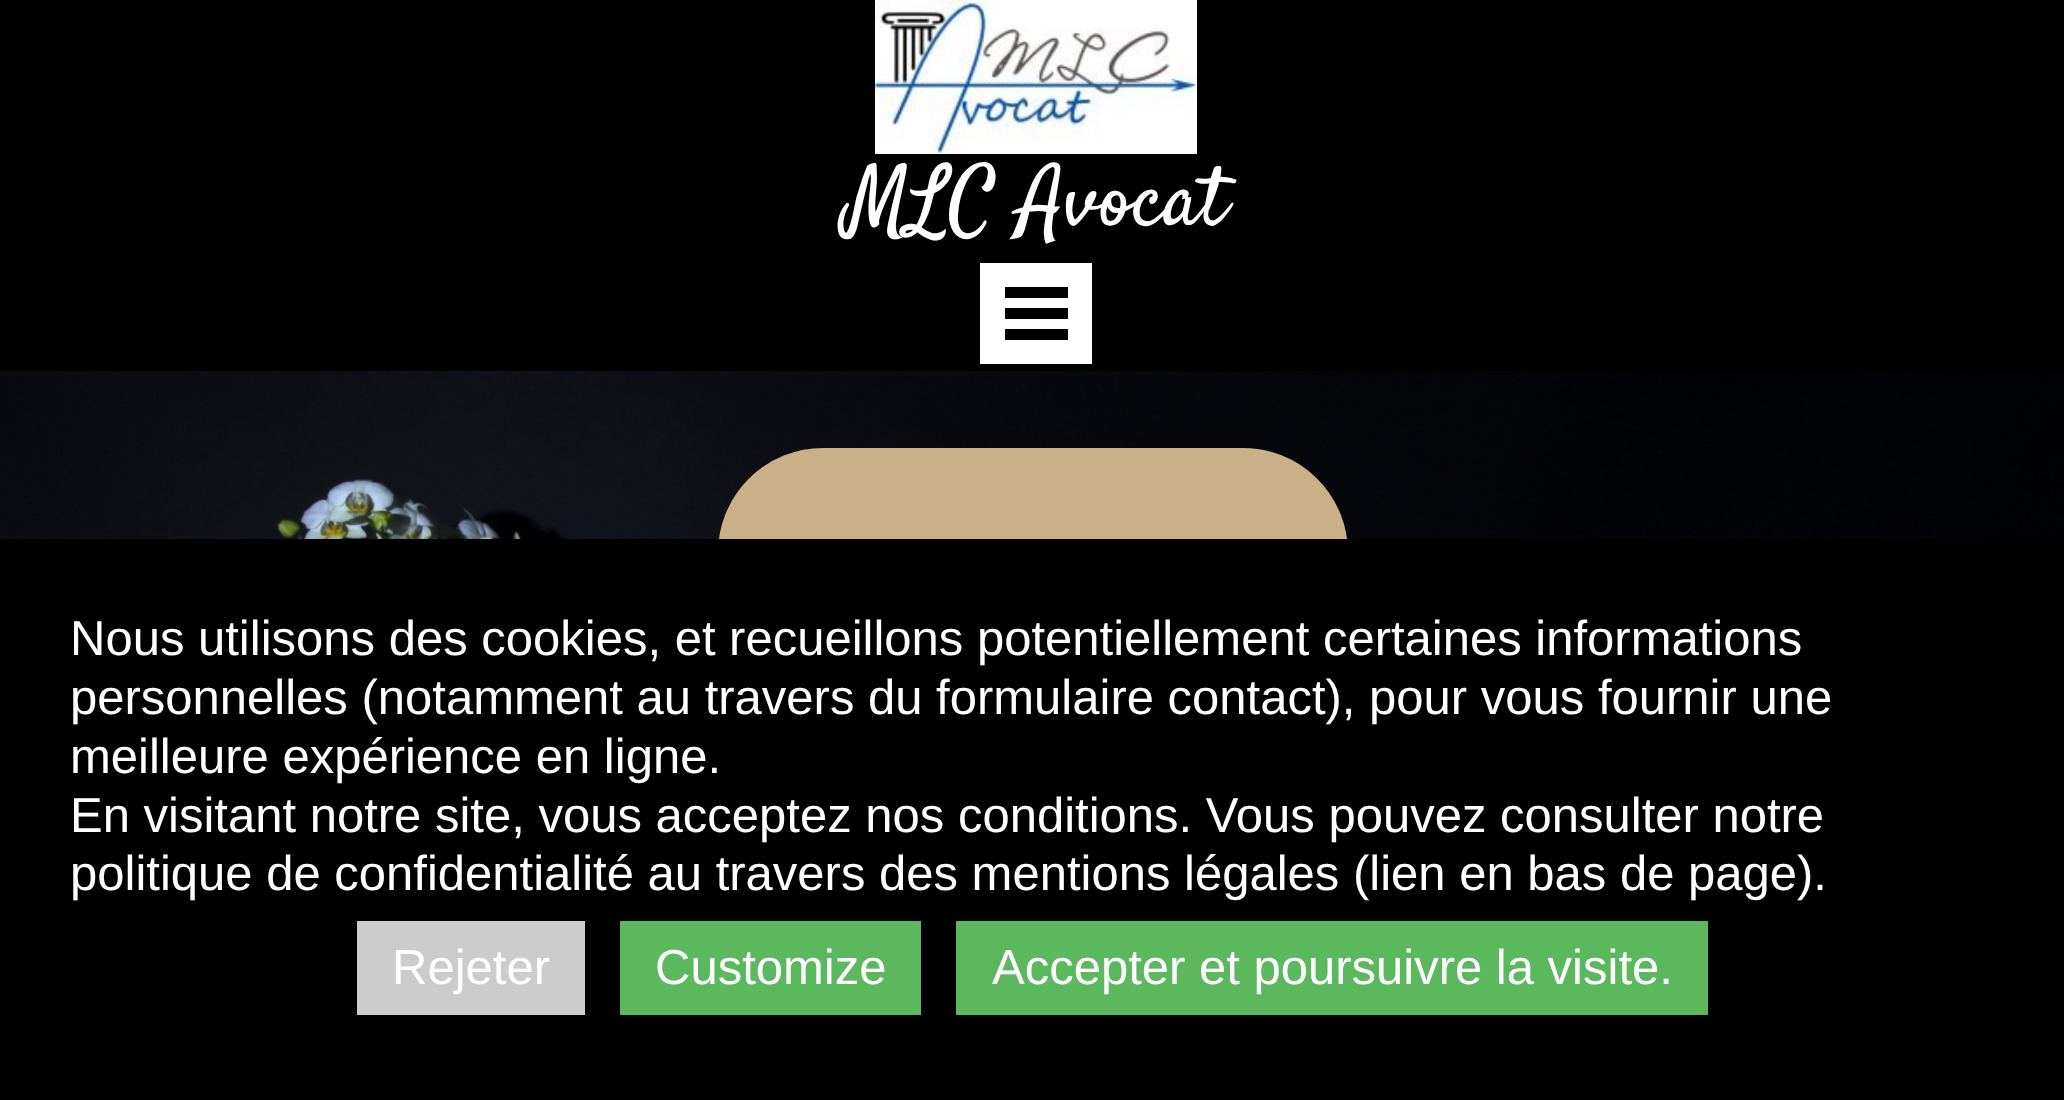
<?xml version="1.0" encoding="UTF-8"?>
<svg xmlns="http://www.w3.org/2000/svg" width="2064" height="1100">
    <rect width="100%" height="100%" fill="#FFFFFF"/>
    <rect x="0" y="0" width="2064" height="371" fill="#000000"/>
    <image x="875" y="0" width="322" height="154" href="img_01.png"/>
    <text x="846" y="224" font-family="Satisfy" font-size="84" fill="#FFFFFF">MLC Avocat</text>
    <rect x="980" y="263" width="112" height="101" fill="#FFFFFF"/>
    <rect x="1005" y="287" width="63" height="11" fill="#000000"/>
    <rect x="1005" y="308" width="63" height="11" fill="#000000"/>
    <rect x="1005" y="329" width="63" height="11" fill="#000000"/>
    <image x="0" y="371" width="2064" height="168" href="img_02.png"/>
    <rect x="721.5" y="451.5" width="623" height="203" rx="101.5" fill="#C9B086" stroke="#C9B086" stroke-width="7"/>
    <rect x="0" y="539" width="2064" height="561" fill="#000000"/>
    <text font-family="Liberation Sans" font-size="49" fill="#FFFFFF">
        <tspan x="70" y="655">Nous utilisons des cookies, et recueillons potentiellement certaines informations</tspan>
        <tspan x="70" y="714">personnelles (notamment au travers du formulaire contact), pour vous fournir une</tspan>
        <tspan x="70" y="773">meilleure expérience en ligne.</tspan>
        <tspan x="70" y="832">En visitant notre site, vous acceptez nos conditions. Vous pouvez consulter notre</tspan>
        <tspan x="70" y="890">politique de confidentialité au travers des mentions légales (lien en bas de page).</tspan>
    </text>
    <rect x="357" y="921" width="228" height="94" fill="#CCCCCC"/>
    <text x="392" y="984" font-family="Liberation Sans" font-size="49" fill="#FFFFFF">Rejeter</text>
    <rect x="620" y="921" width="301" height="94" fill="#5CB85C"/>
    <text x="655" y="984" font-family="Liberation Sans" font-size="49" fill="#FFFFFF">Customize</text>
    <rect x="956" y="921" width="752" height="94" fill="#5CB85C"/>
    <text x="992" y="984" font-family="Liberation Sans" font-size="49" fill="#FFFFFF">Accepter et poursuivre la visite.</text>
</svg>
